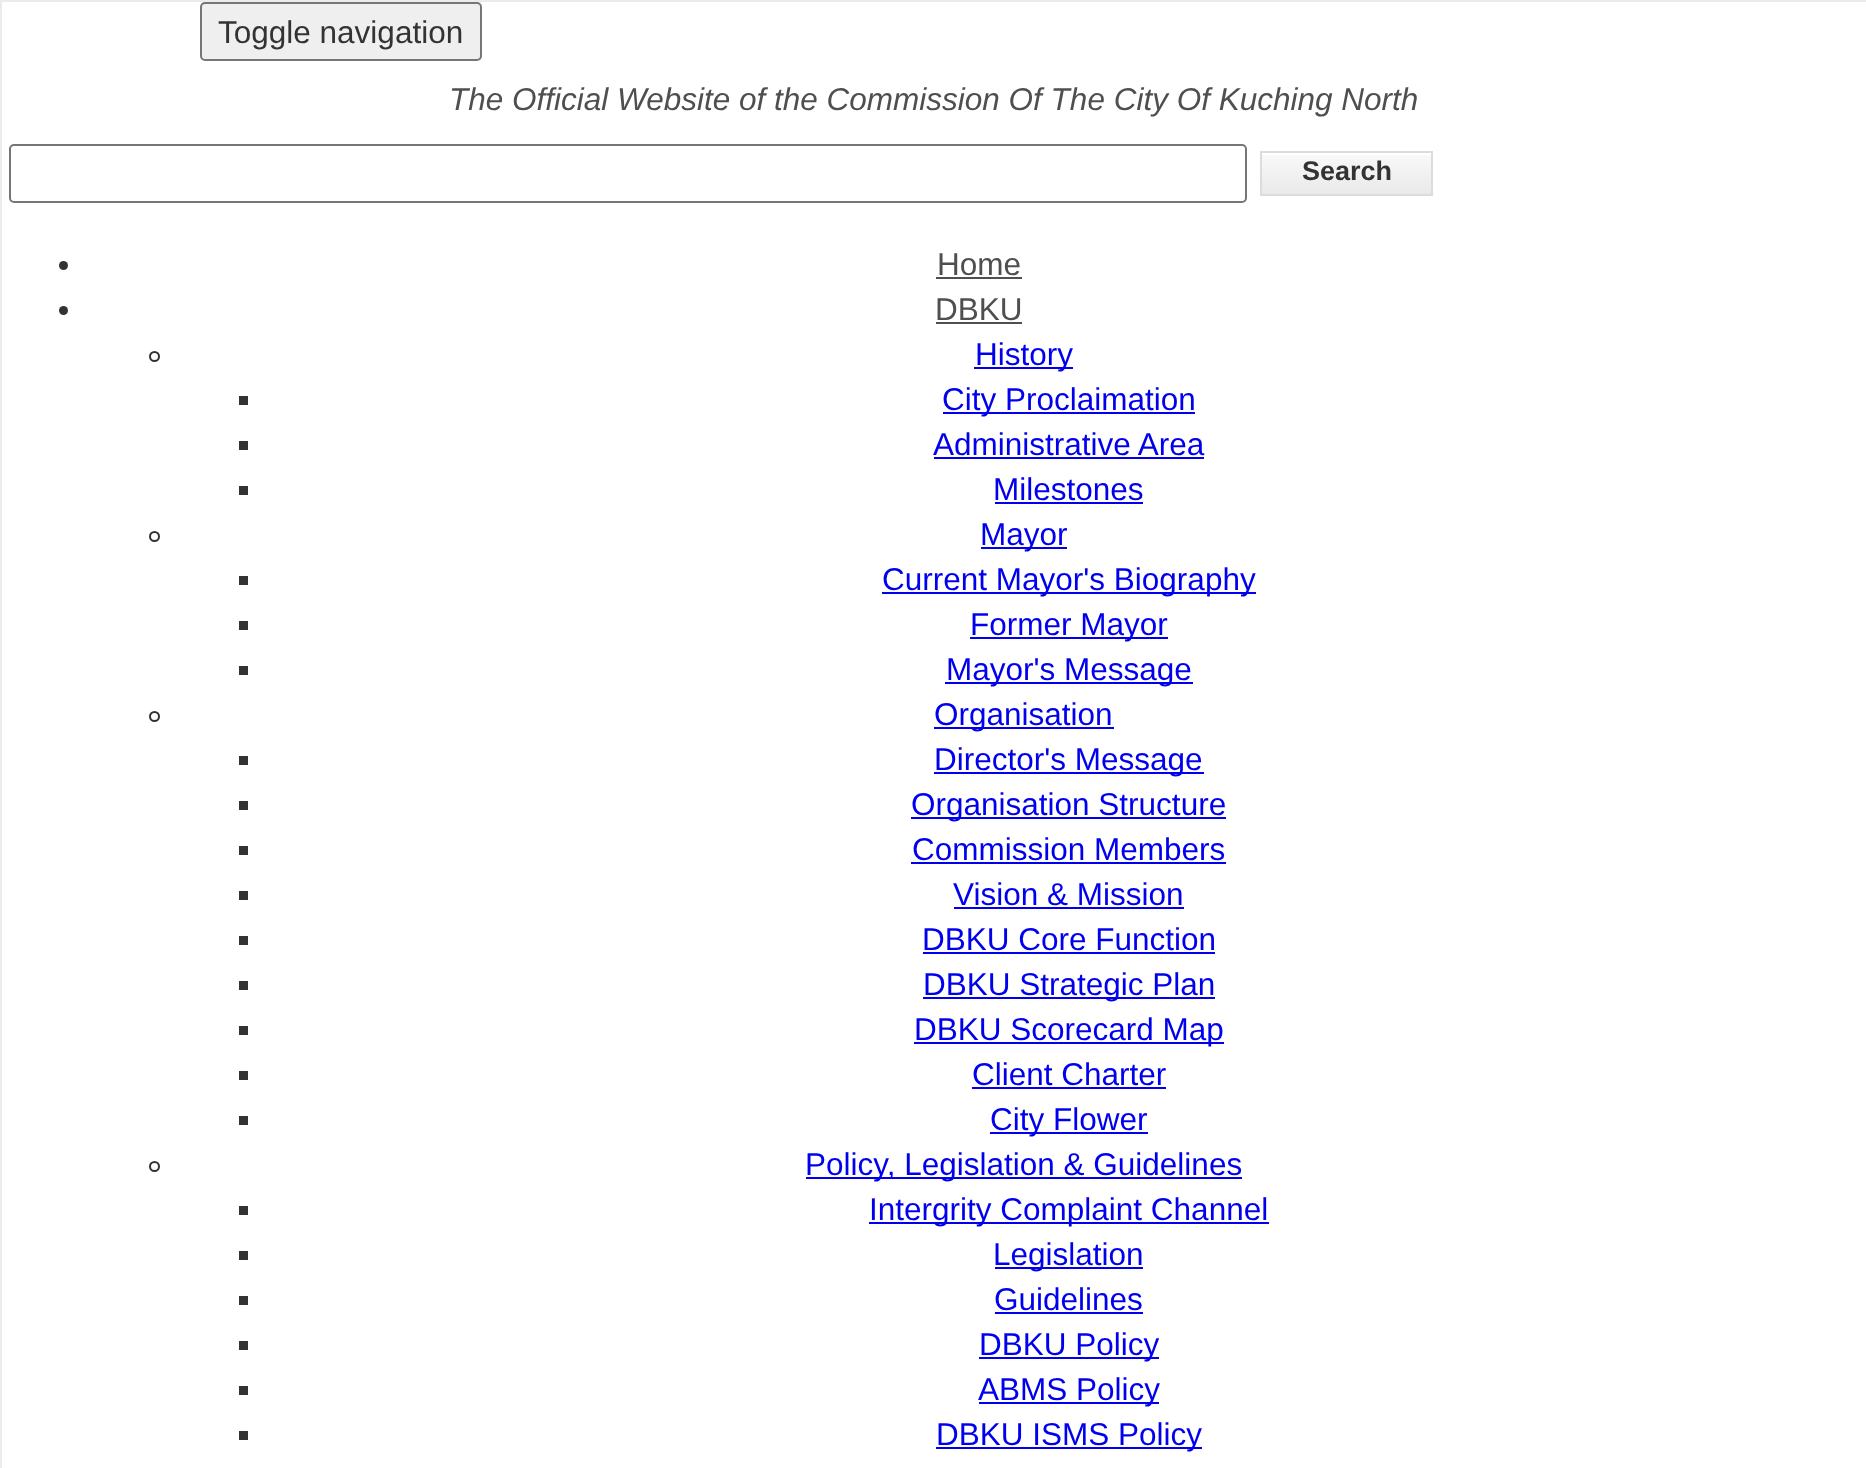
<?xml version="1.0" encoding="UTF-8"?>
<svg xmlns="http://www.w3.org/2000/svg" width="1866" height="1468">
    <defs>
        <linearGradient id="g1" gradientUnits="userSpaceOnUse" x1="1262" y1="153" x2="1262" y2="194"><stop offset="0.05" stop-color="#F9F9F9"/><stop offset="1" stop-color="#E9E9E9"/></linearGradient>
    </defs>
    <rect width="100%" height="100%" fill="#FFFFFF"/>
    <rect x="1" y="1" width="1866" height="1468" fill="none" stroke="#EBEBEB" stroke-width="2"/>
    <rect x="201" y="3" width="280" height="57" rx="4" fill="#EFEFEF" stroke="#767676" stroke-width="2"/>
    <text x="218" y="43" font-family="Liberation Sans" font-size="31.5" fill="#333333">Toggle navigation</text>
    <text x="449" y="110" font-family="Liberation Sans" font-size="31.5" font-style="italic" fill="#4F4F4F">The Official Website of the Commission Of The City Of Kuching North</text>
    <rect x="10" y="145" width="1236" height="57" rx="4" fill="none" stroke="#767676" stroke-width="2"/>
    <rect x="1262" y="155" width="169" height="39" fill="url(#g1)"/>
    <rect x="1261" y="152" width="171" height="43" fill="none" stroke="#DCDCDC" stroke-width="2"/>
    <text x="1302" y="180" font-family="Liberation Sans" font-size="27" font-weight="700" fill="#333333">Search</text>
    <circle cx="63.5" cy="265.5" r="4.5" fill="#333333"/>
    <text x="937" y="275" font-family="Liberation Sans" font-size="31.5" fill="#4F4F4F">Home</text>
    <rect x="936" y="277" width="86" height="2" fill="#4F4F4F"/>
    <circle cx="63.5" cy="310.5" r="4.5" fill="#333333"/>
    <text x="935" y="320" font-family="Liberation Sans" font-size="31.5" fill="#4F4F4F">DBKU</text>
    <rect x="936" y="322" width="86" height="2" fill="#4F4F4F"/>
    <circle cx="154.5" cy="356.5" r="4.5" fill="none" stroke="#333333" stroke-width="2"/>
    <rect x="974" y="367" width="99" height="2" fill="#0000EE"/>
    <text x="975" y="365" font-family="Liberation Sans" font-size="31.5" fill="#0000EE">History</text>
    <rect x="239" y="396" width="9" height="9" fill="#333333"/>
    <rect x="943" y="412" width="252" height="2" fill="#0000EE"/>
    <text x="942" y="410" font-family="Liberation Sans" font-size="31.5" fill="#0000EE">City Proclaimation</text>
    <rect x="239" y="441" width="9" height="9" fill="#333333"/>
    <text x="933" y="455" font-family="Liberation Sans" font-size="31.5" fill="#0000EE">Administrative Area</text>
    <rect x="934" y="457" width="270" height="2" fill="#0000EE"/>
    <rect x="239" y="486" width="9" height="9" fill="#333333"/>
    <text x="993" y="500" font-family="Liberation Sans" font-size="31.5" fill="#0000EE">Milestones</text>
    <rect x="995" y="502" width="148" height="2" fill="#0000EE"/>
    <circle cx="154.5" cy="536.5" r="4.5" fill="none" stroke="#333333" stroke-width="2"/>
    <rect x="981" y="547" width="86" height="2" fill="#0000EE"/>
    <text x="980" y="545" font-family="Liberation Sans" font-size="31.5" fill="#0000EE">Mayor</text>
    <rect x="239" y="576" width="9" height="9" fill="#333333"/>
    <rect x="882" y="592" width="374" height="2" fill="#0000EE"/>
    <text x="882" y="590" font-family="Liberation Sans" font-size="31.5" fill="#0000EE">Current Mayor's Biography</text>
    <rect x="239" y="621" width="9" height="9" fill="#333333"/>
    <rect x="970" y="637" width="198" height="2" fill="#0000EE"/>
    <text x="970" y="635" font-family="Liberation Sans" font-size="31.5" fill="#0000EE">Former Mayor</text>
    <rect x="239" y="666" width="9" height="9" fill="#333333"/>
    <rect x="945" y="682" width="248" height="2" fill="#0000EE"/>
    <text x="946" y="680" font-family="Liberation Sans" font-size="31.5" fill="#0000EE">Mayor's Message</text>
    <circle cx="154.5" cy="716.5" r="4.5" fill="none" stroke="#333333" stroke-width="2"/>
    <rect x="934" y="727" width="180" height="2" fill="#0000EE"/>
    <text x="934" y="725" font-family="Liberation Sans" font-size="31.5" fill="#0000EE">Organisation</text>
    <rect x="239" y="756" width="9" height="9" fill="#333333"/>
    <rect x="934" y="772" width="270" height="2" fill="#0000EE"/>
    <text x="934" y="770" font-family="Liberation Sans" font-size="31.5" fill="#0000EE">Director's Message</text>
    <rect x="239" y="801" width="9" height="9" fill="#333333"/>
    <rect x="911" y="817" width="315" height="2" fill="#0000EE"/>
    <text x="911" y="815" font-family="Liberation Sans" font-size="31.5" fill="#0000EE">Organisation Structure</text>
    <rect x="239" y="846" width="9" height="9" fill="#333333"/>
    <text x="912" y="860" font-family="Liberation Sans" font-size="31.5" fill="#0000EE">Commission Members</text>
    <rect x="911" y="862" width="315" height="2" fill="#0000EE"/>
    <rect x="239" y="891" width="9" height="9" fill="#333333"/>
    <text x="953" y="905" font-family="Liberation Sans" font-size="31.5" fill="#0000EE">Vision &amp; Mission</text>
    <rect x="954" y="907" width="230" height="2" fill="#0000EE"/>
    <rect x="239" y="936" width="9" height="9" fill="#333333"/>
    <text x="922" y="950" font-family="Liberation Sans" font-size="31.5" fill="#0000EE">DBKU Core Function</text>
    <rect x="923" y="952" width="292" height="2" fill="#0000EE"/>
    <rect x="239" y="981" width="9" height="9" fill="#333333"/>
    <rect x="923" y="997" width="292" height="2" fill="#0000EE"/>
    <text x="923" y="995" font-family="Liberation Sans" font-size="31.5" fill="#0000EE">DBKU Strategic Plan</text>
    <rect x="239" y="1026" width="9" height="9" fill="#333333"/>
    <rect x="914" y="1042" width="310" height="2" fill="#0000EE"/>
    <text x="914" y="1040" font-family="Liberation Sans" font-size="31.5" fill="#0000EE">DBKU Scorecard Map</text>
    <rect x="239" y="1071" width="9" height="9" fill="#333333"/>
    <text x="972" y="1085" font-family="Liberation Sans" font-size="31.5" fill="#0000EE">Client Charter</text>
    <rect x="972" y="1087" width="194" height="2" fill="#0000EE"/>
    <rect x="239" y="1116" width="9" height="9" fill="#333333"/>
    <rect x="990" y="1132" width="158" height="2" fill="#0000EE"/>
    <text x="990" y="1130" font-family="Liberation Sans" font-size="31.5" fill="#0000EE">City Flower</text>
    <circle cx="154.5" cy="1166.5" r="4.5" fill="none" stroke="#333333" stroke-width="2"/>
    <rect x="806" y="1177" width="436" height="2" fill="#0000EE"/>
    <text x="805" y="1175" font-family="Liberation Sans" font-size="31.5" fill="#0000EE">Policy, Legislation &amp; Guidelines</text>
    <rect x="239" y="1206" width="9" height="9" fill="#333333"/>
    <rect x="869" y="1222" width="400" height="2" fill="#0000EE"/>
    <text x="869" y="1220" font-family="Liberation Sans" font-size="31.5" fill="#0000EE">Intergrity Complaint Channel</text>
    <rect x="239" y="1251" width="9" height="9" fill="#333333"/>
    <rect x="995" y="1267" width="148" height="2" fill="#0000EE"/>
    <text x="993" y="1265" font-family="Liberation Sans" font-size="31.5" fill="#0000EE">Legislation</text>
    <rect x="239" y="1296" width="9" height="9" fill="#333333"/>
    <text x="994" y="1310" font-family="Liberation Sans" font-size="31.5" fill="#0000EE">Guidelines</text>
    <rect x="995" y="1312" width="148" height="2" fill="#0000EE"/>
    <rect x="239" y="1341" width="9" height="9" fill="#333333"/>
    <rect x="979" y="1357" width="180" height="2" fill="#0000EE"/>
    <text x="979" y="1355" font-family="Liberation Sans" font-size="31.5" fill="#0000EE">DBKU Policy</text>
    <rect x="239" y="1386" width="9" height="9" fill="#333333"/>
    <rect x="979" y="1402" width="180" height="2" fill="#0000EE"/>
    <text x="978" y="1400" font-family="Liberation Sans" font-size="31.5" fill="#0000EE">ABMS Policy</text>
    <rect x="239" y="1431" width="9" height="9" fill="#333333"/>
    <rect x="936" y="1447" width="266" height="2" fill="#0000EE"/>
    <text x="936" y="1445" font-family="Liberation Sans" font-size="31.5" fill="#0000EE">DBKU ISMS Policy</text>
</svg>
